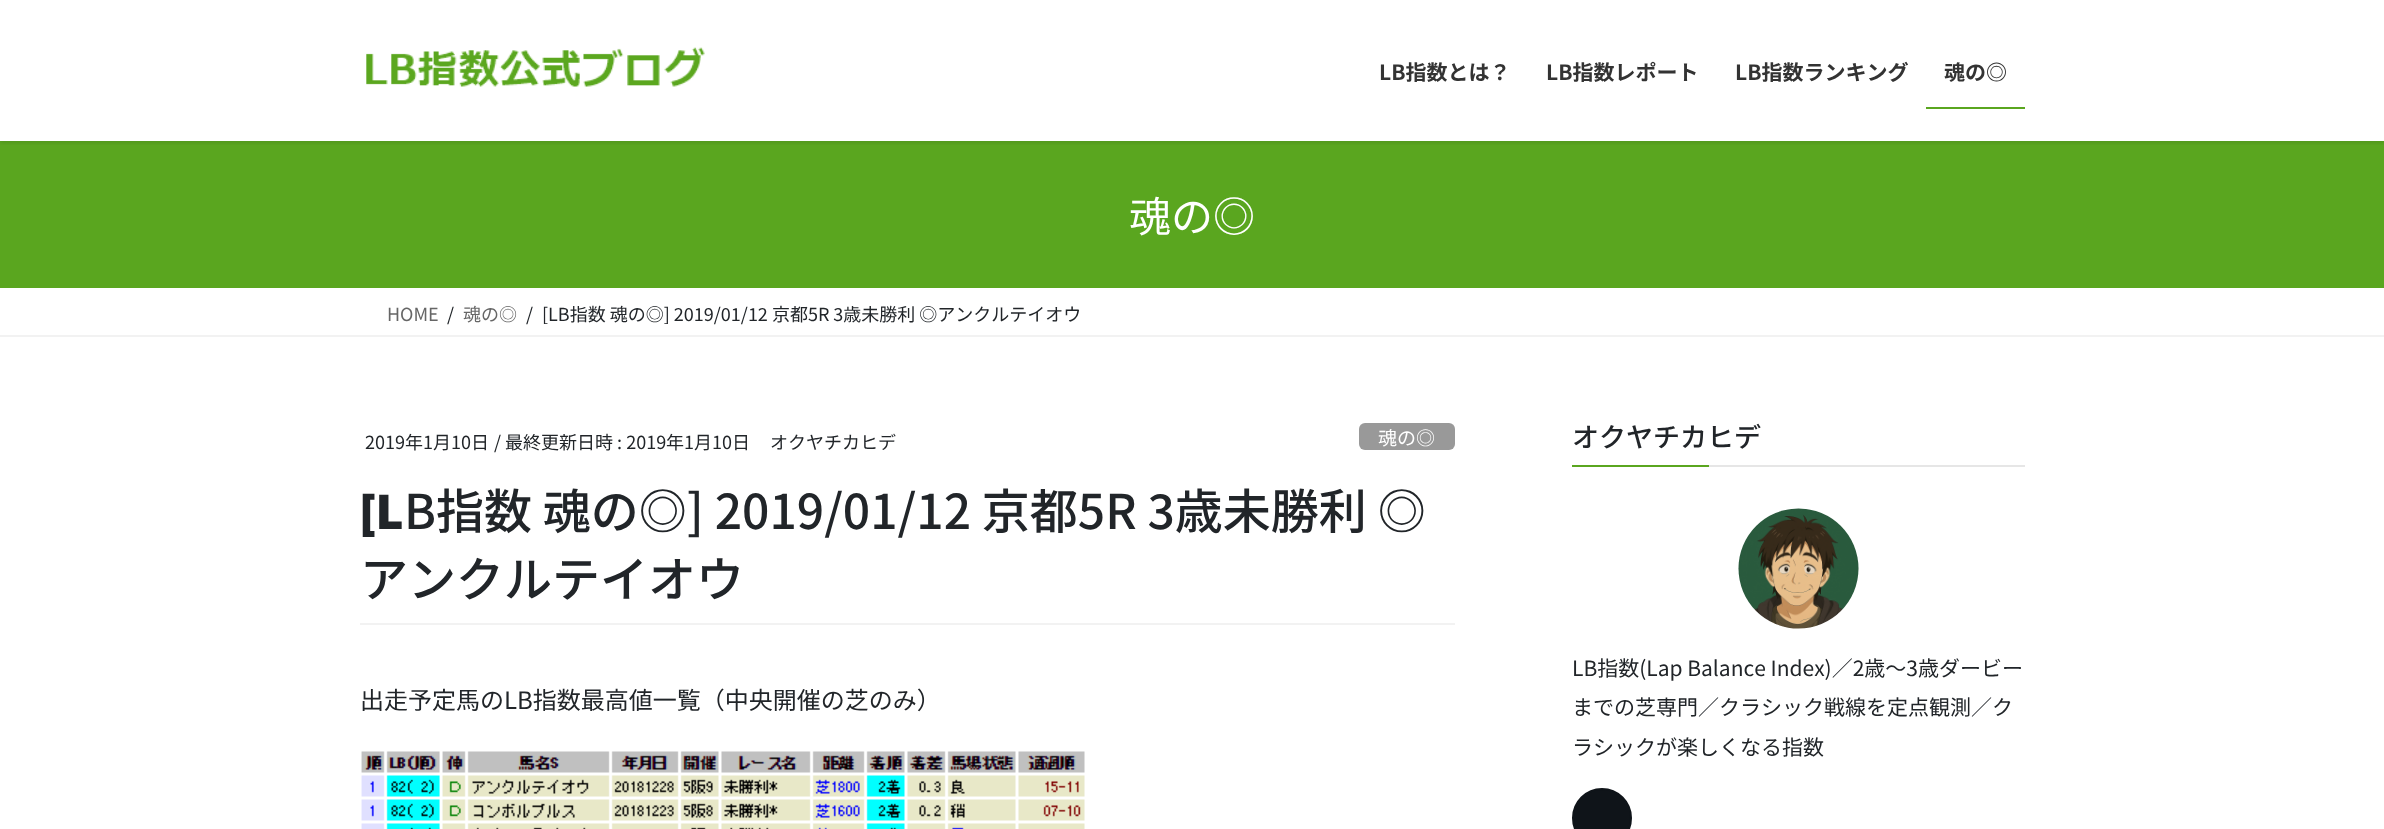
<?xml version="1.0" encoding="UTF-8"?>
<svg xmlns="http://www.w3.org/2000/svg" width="2384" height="829">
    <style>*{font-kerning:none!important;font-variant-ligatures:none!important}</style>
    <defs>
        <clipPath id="clip1"><rect x="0" y="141" width="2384" height="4"/></clipPath>
        <filter id="blur1" x="-50%" y="-200%" width="200%" height="500%"><feGaussianBlur stdDeviation="2"/></filter>
    </defs>
    <rect width="100%" height="100%" fill="#FFFFFF"/>
    <rect x="0" y="141" width="2384" height="147" fill="#5AA61F"/>
    <g clip-path="url(#clip1)">
        <rect x="0" y="2" width="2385" height="141" fill="#000000" fill-opacity="0.1" filter="url(#blur1)"/>
    </g>
    <image x="366" y="47" width="339" height="40" href="img_01.png"/>
    <text x="1379" y="80" font-family="Noto Sans JP" font-size="21" font-weight="700" fill="#333333">LB指数とは？</text>
    <text x="1546" y="80" font-family="Noto Sans JP" font-size="21" font-weight="700" fill="#333333">LB指数レポート</text>
    <text x="1735" y="80" font-family="Noto Sans JP" font-size="21" font-weight="700" fill="#333333">LB指数ランキング</text>
    <text x="1944" y="80" font-family="Noto Sans JP" font-size="21" font-weight="700" fill="#333333">魂の◎</text>
    <rect x="1926" y="107" width="99" height="2" fill="#5AA61F"/>
    <text x="1129" y="232" font-family="Noto Sans JP" font-size="42" fill="#FFFFFF">魂の◎</text>
    <rect x="0" y="335" width="2384" height="2" fill="#F2F2F2"/>
    <text x="387" y="321" font-family="Noto Sans JP" font-size="18" fill="#666666">HOME</text>
    <text x="447" y="321" font-family="Noto Sans JP" font-size="18" fill="#212529">/</text>
    <text x="463" y="321" font-family="Noto Sans JP" font-size="18" fill="#666666">魂の◎</text>
    <text x="526" y="321" font-family="Noto Sans JP" font-size="18" fill="#212529">/</text>
    <text x="542" y="321" font-family="Noto Sans JP" font-size="18" fill="#212529">[LB指数 魂の◎] 2019/01/12 京都5R 3歳未勝利 ◎アンクルテイオウ</text>
    <rect x="360" y="623" width="1095" height="2" fill="#F2F2F2"/>
    <text x="365" y="449" font-family="Noto Sans JP" font-size="18" fill="#212529">2019年1月10日</text>
    <text x="494" y="449" font-family="Noto Sans JP" font-size="18" fill="#212529">/ 最終更新日時 : 2019年1月10日</text>
    <text x="770" y="449" font-family="Noto Sans JP" font-size="18" fill="#212529">オクヤチカヒデ</text>
    <rect x="1359" y="423" width="96" height="27" rx="6" fill="#999999"/>
    <text x="1378" y="445" font-family="Noto Sans JP" font-size="19" fill="#FFFFFF">魂の◎</text>
    <text x="360" y="529" font-family="Noto Sans" font-size="48" font-weight="900" fill="#212529">[L</text>
    <text x="404" y="529" font-family="Noto Sans JP" font-size="48" font-weight="500" fill="#212529">B指数 魂の◎] 2019/01/12 京都5R 3歳未勝利 ◎</text>
    <text x="360" y="597" font-family="Noto Sans JP" font-size="48" font-weight="500" fill="#212529">アンクルテイオウ</text>
    <text x="360" y="709" font-family="Noto Sans JP" font-size="24" fill="#212529">出走予定馬のLB指数最高値一覧（中央開催の芝のみ）</text>
    <image x="361" y="751" width="724" height="78" href="img_02.png"/>
    <rect x="1709" y="465" width="316" height="2" fill="#E6E6E6"/>
    <text x="1572" y="447" font-family="Noto Sans JP" font-size="27" font-weight="500" fill="#212529">オクヤチカヒデ</text>
    <rect x="1572" y="465" width="137" height="2" fill="#5AA61F"/>
    <image x="1738" y="508" width="121" height="121" href="img_03.png"/>
    <text font-family="Noto Sans JP" font-size="21" fill="#212529">
        <tspan x="1572" y="676">LB指数(Lap Balance Index)／2歳～3歳ダービー</tspan>
        <tspan x="1572" y="715">までの芝専門／クラシック戦線を定点観測／ク</tspan>
        <tspan x="1572" y="755">ラシックが楽しくなる指数</tspan>
    </text>
    <circle cx="1602" cy="818" r="29" fill="#0F1419" stroke="#0F1419" stroke-width="2"/>
</svg>
